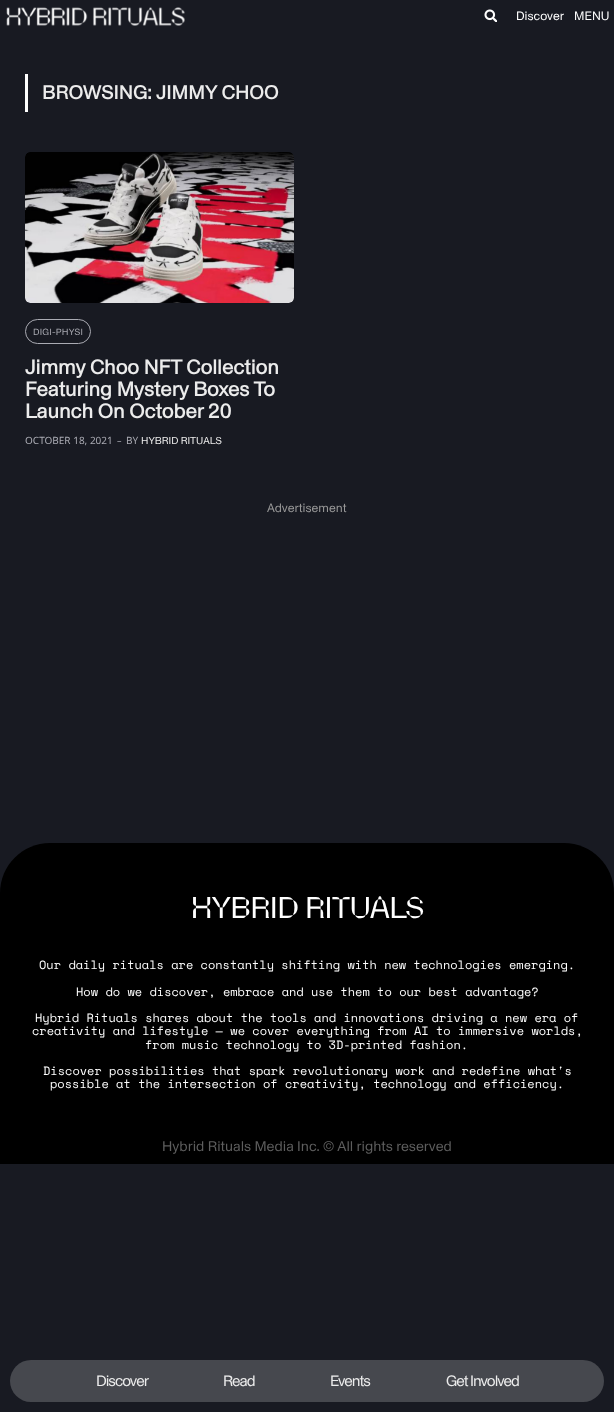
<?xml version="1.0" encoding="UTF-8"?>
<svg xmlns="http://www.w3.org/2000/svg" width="614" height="1412">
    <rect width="100%" height="100%" fill="#181A22"/>
    <image x="6" y="7" width="179" height="19" href="img_01.png"/>
    <image x="484" y="9" width="13" height="13" href="img_02.png"/>
    <text x="516" y="20" font-family="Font" font-size="12" fill="#FFFFFF">Discover</text>
    <text x="574" y="20" font-family="Font" font-size="12" fill="#FFFFFF">MENU</text>
    <rect x="25" y="74" width="3" height="38" fill="#FFFFFF"/>
    <text x="42" y="99" font-family="Font" font-size="19" font-weight="700" letter-spacing="0.2" fill="#ECECEC">BROWSING: JIMMY CHOO</text>
    <image x="25" y="152" width="269" height="151" href="img_03.png"/>
    <rect x="25.5" y="319.5" width="65" height="24" rx="12" fill="none" stroke="#AAABB3"/>
    <text x="33" y="335" font-family="Font" font-size="9" letter-spacing="0.25" fill="#AAABB3">DIGI-PHYSI</text>
    <text font-family="Font" font-size="20" font-weight="700" fill="#ECECEC">
        <tspan x="25" y="374">Jimmy Choo NFT Collection</tspan>
        <tspan x="25" y="396">Featuring Mystery Boxes To</tspan>
        <tspan x="25" y="418">Launch On October 20</tspan>
    </text>
    <text x="25" y="444" font-family="Noto Sans" font-size="10" fill="#AAABB3">OCTOBER 18, 2021</text>
    <text x="117" y="444" font-family="Noto Sans" font-size="9" fill="#AAABB3">–</text>
    <text x="126" y="444" font-family="Noto Sans" font-size="10" fill="#AAABB3">BY</text>
    <text x="141" y="444" font-family="Font" font-size="10" fill="#ECECEC">HYBRID RITUALS</text>
    <text x="267" y="512" font-family="Font" font-size="12" fill="#999999">Advertisement</text>
    <path d="M 50 843 H 564 C 591.5 843 614 865.5 614 893 V 1130 H 0 V 893 C 0 865.5 22.5 843 50 843 Z" fill="#000000"/>
    <text x="191" y="918" font-family="'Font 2'" font-size="30" letter-spacing="-0.5" fill="#FFFFFF">HYBRID RITUALS</text>
    <text x="39" y="969" font-family="Space Mono" font-size="12" fill="#FFFFFF">Our daily rituals are constantly shifting with new technologies emerging.</text>
    <text x="76" y="996" font-family="Space Mono" font-size="12" fill="#FFFFFF">How do we discover, embrace and use them to our best advantage?</text>
    <text x="35" y="1022" font-family="Space Mono" font-size="12" fill="#FFFFFF">Hybrid Rituals shares about the tools and innovations driving a new era of</text>
    <text x="32" y="1035" font-family="Space Mono" font-size="12" fill="#FFFFFF">creativity and lifestyle — we cover everything from AI to immersive worlds,</text>
    <text x="145" y="1049" font-family="Space Mono" font-size="12" fill="#FFFFFF">from music technology to 3D-printed fashion.</text>
    <text x="43" y="1075" font-family="Space Mono" font-size="12" fill="#FFFFFF">Discover possibilities that spark revolutionary work and redefine what's</text>
    <text x="50" y="1088" font-family="Space Mono" font-size="12" fill="#FFFFFF">possible at the intersection of creativity, technology and efficiency.</text>
    <rect x="0" y="1130" width="614" height="34" fill="#000000"/>
    <text x="162" y="1151" font-family="Font" font-size="14" fill="#5E5E5E">Hybrid Rituals Media Inc. © All rights reserved</text>
    <rect x="10" y="1360" width="594" height="42" rx="21" fill="#46484E"/>
    <text x="96" y="1386" font-family="Font" font-size="15" letter-spacing="-1" fill="#ECECEC">Discover</text>
    <text x="223" y="1386" font-family="Font" font-size="15" letter-spacing="-1" fill="#ECECEC">Read</text>
    <text x="330" y="1386" font-family="Font" font-size="15" letter-spacing="-1" fill="#ECECEC">Events</text>
    <text x="446" y="1386" font-family="Font" font-size="15" letter-spacing="-1" fill="#ECECEC">Get Involved</text>
</svg>
